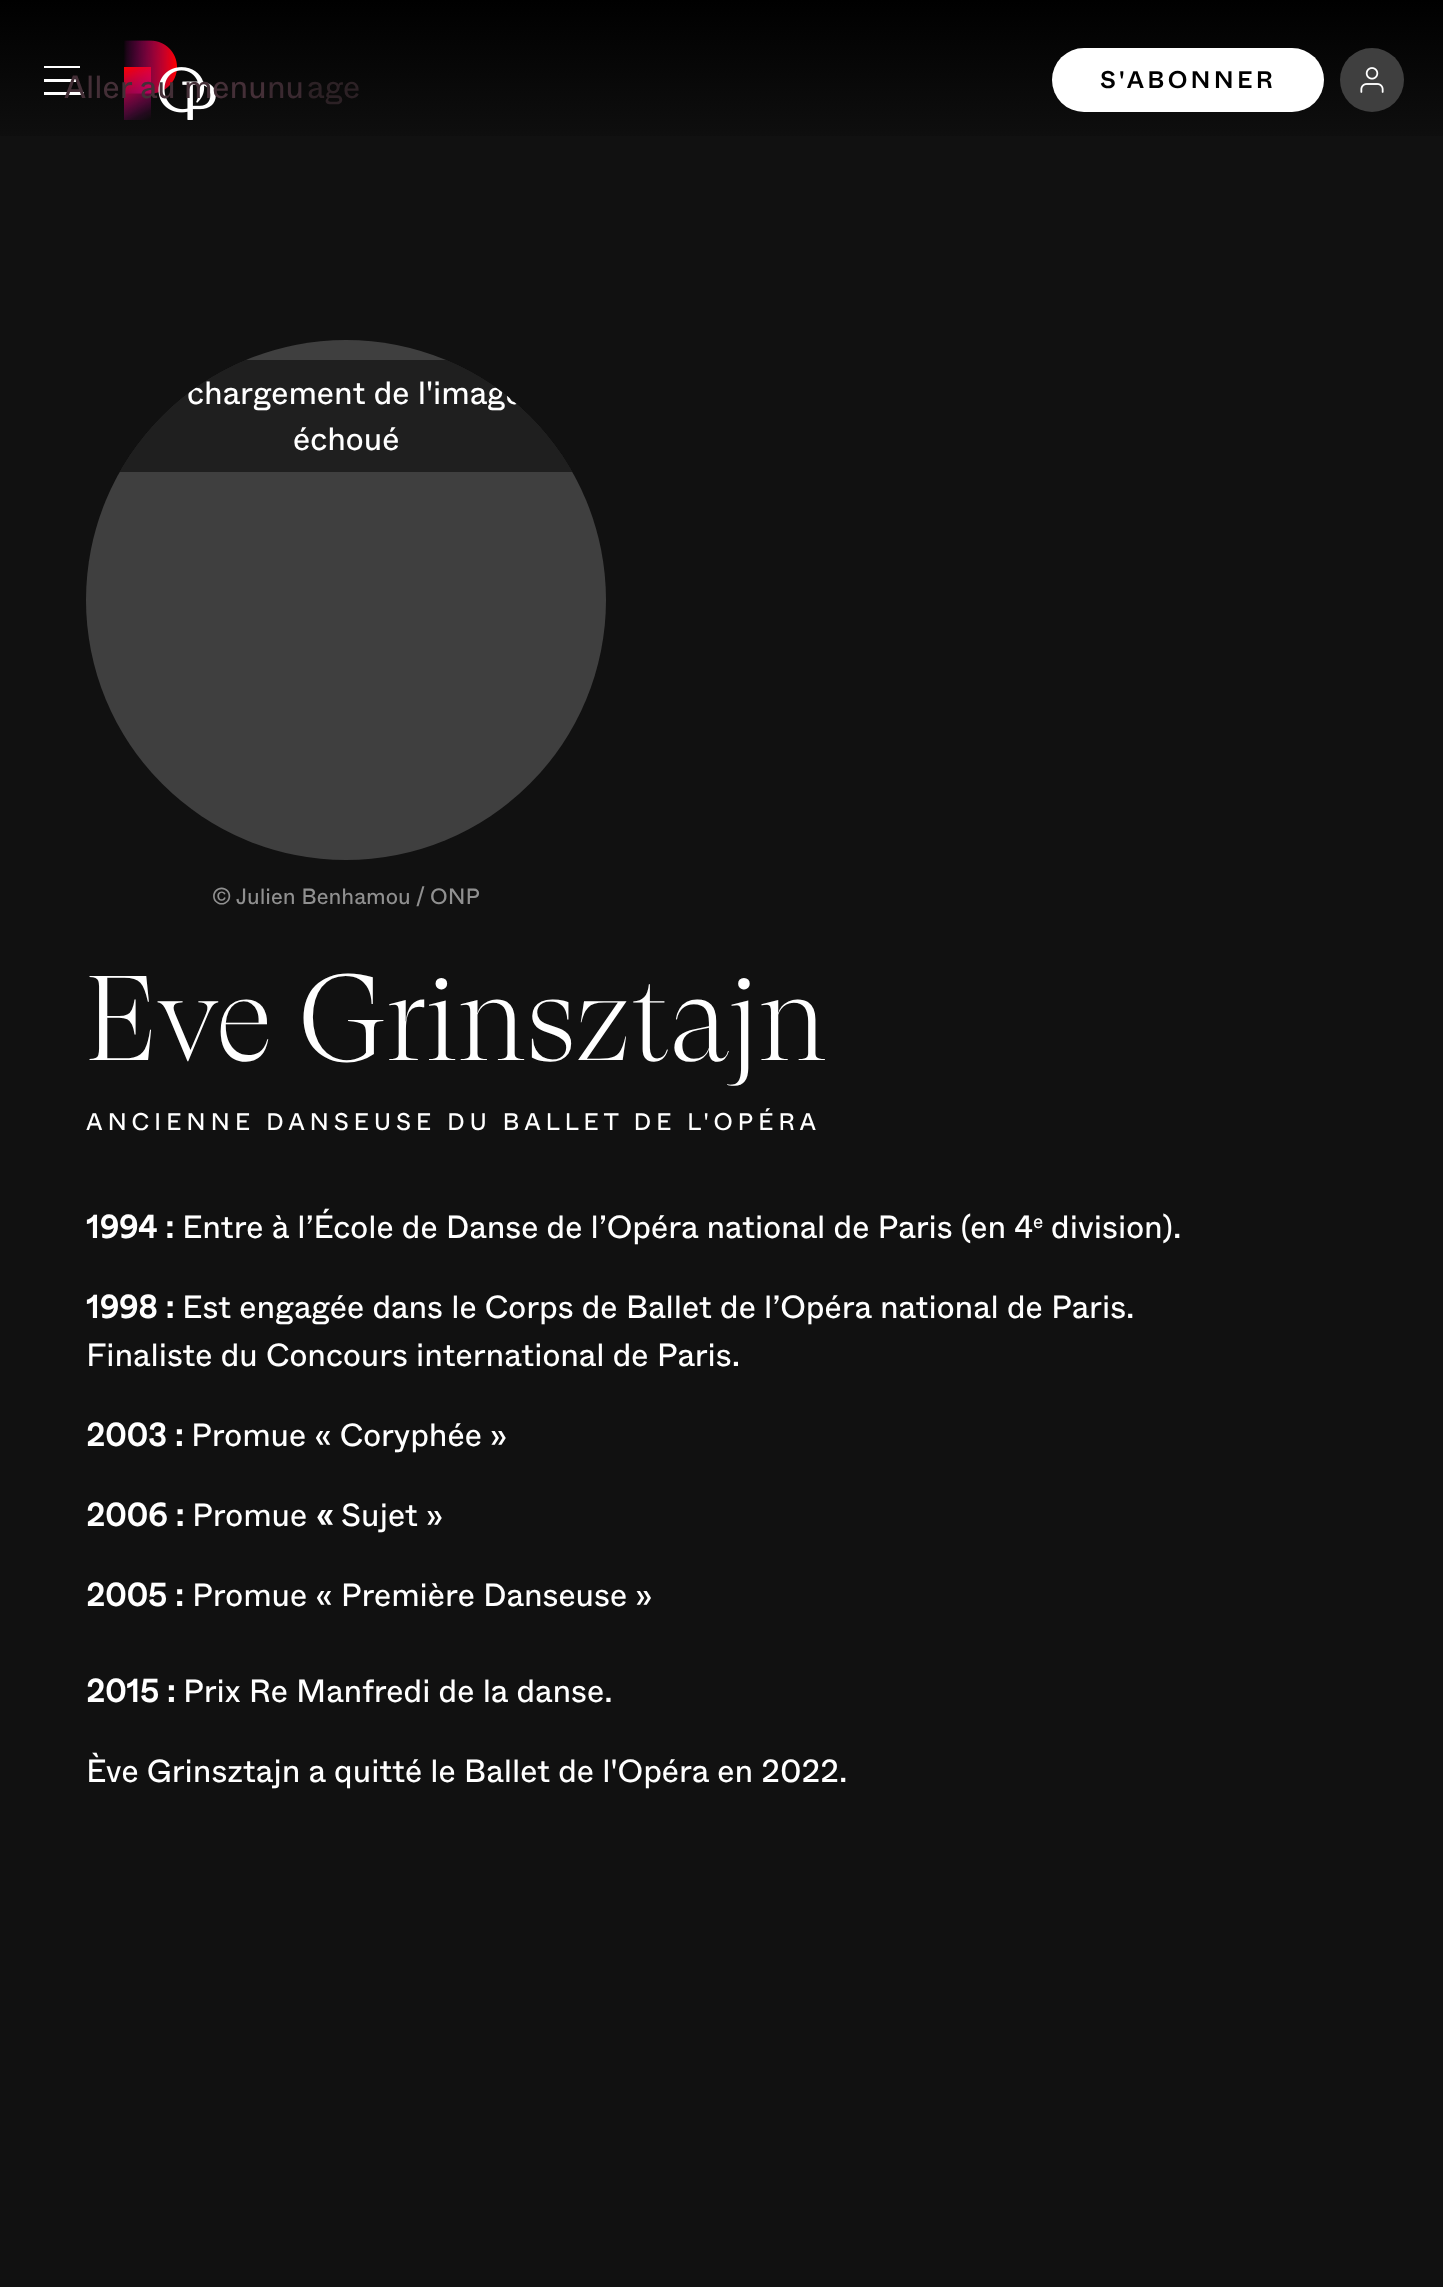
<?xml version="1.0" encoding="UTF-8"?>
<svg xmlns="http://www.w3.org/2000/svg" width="1443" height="2287">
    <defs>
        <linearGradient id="g1" gradientUnits="userSpaceOnUse" x1="722" y1="0" x2="722" y2="160"><stop offset="0" stop-color="#000000"/><stop offset="1" stop-color="#111111"/></linearGradient>
        <clipPath id="clip1"><rect x="86" y="340" width="520" height="520" rx="260"/></clipPath>
    </defs>
    <rect width="100%" height="100%" fill="#111111"/>
    <rect x="0" y="0" width="1443" height="136" fill="url(#g1)"/>
    <path d="M 44 66 H 80 V 68 H 44 Z M 44 79 H 76 V 82 H 44 Z M 84 92 H 44 V 95 H 84 Z" fill="#FFFFFF"/>
    <image x="124" y="40" width="92" height="80" href="img_01.png"/>
    <text x="64" y="98" font-family="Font" font-size="32" fill="#442F37">Aller au menu</text>
    <text x="267" y="98" font-family="Font" font-size="32" fill="#3A2930">nu</text>
    <text x="307" y="98" font-family="Font" font-size="32" fill="#2C2125">age</text>
    <rect x="1052" y="48" width="272" height="64" rx="32" fill="#FFFFFF"/>
    <text x="1100" y="88" font-family="Font" font-size="24" font-weight="500" letter-spacing="3.25" fill="#000000">S'ABONNER</text>
    <circle cx="1372" cy="80" r="32" fill="#3F3F3F"/>
    <image x="1360" y="67" width="24" height="26" href="img_02.png"/>
    <circle cx="346" cy="600" r="260" fill="#3F3F3F"/>
    <g clip-path="url(#clip1)">
        <rect x="106" y="360" width="480" height="112" rx="10" fill="#000000" fill-opacity="0.5"/>
        <text x="187" y="404" font-family="Font" font-size="32" fill="#FFFFFF">chargement de l'image</text>
    </g>
    <text x="293" y="450" font-family="Font" font-size="32" fill="#FFFFFF">échoué</text>
    <text x="212" y="904" font-family="Font" font-size="22" fill="#909090">©</text>
    <text x="236" y="904" font-family="Font" font-size="22" fill="#909090">Julien Benhamou / ONP</text>
    <text x="86" y="1060" font-family="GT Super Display" font-size="120" font-weight="300" fill="#FFFFFF">Eve Grinsztajn</text>
    <text x="86" y="1130" font-family="Font" font-size="24" letter-spacing="4.8" fill="#FFFFFF">ANCIENNE DANSEUSE DU BALLET DE L'OPÉRA</text>
    <text x="86" y="1238" font-family="Font" font-size="32" font-weight="700" fill="#FFFFFF">1994 :</text>
    <text x="182" y="1238" font-family="Font" font-size="32" fill="#FFFFFF">Entre à l’École de Danse de l’Opéra national de Paris (en 4</text>
    <text x="1033" y="1228" font-family="Font" font-size="19" fill="#FFFFFF">e</text>
    <text x="1051" y="1238" font-family="Font" font-size="32" fill="#FFFFFF">division).</text>
    <text x="86" y="1318" font-family="Font" font-size="32" font-weight="700" fill="#FFFFFF">1998 :</text>
    <text x="182" y="1318" font-family="Font" font-size="32" fill="#FFFFFF">Est engagée dans le Corps de Ballet de l’Opéra national de Paris.</text>
    <text x="86" y="1366" font-family="Font" font-size="32" fill="#FFFFFF">Finaliste du Concours international de Paris.</text>
    <text x="86" y="1446" font-family="Font" font-size="32" font-weight="700" fill="#FFFFFF">2003 :</text>
    <text x="191" y="1446" font-family="Font" font-size="32" fill="#FFFFFF">Promue « Coryphée »</text>
    <text x="86" y="1526" font-family="Font" font-size="32" font-weight="700" fill="#FFFFFF">2006 :</text>
    <text x="192" y="1526" font-family="Font" font-size="32" fill="#FFFFFF">Promue</text>
    <text x="316" y="1526" font-family="Font" font-size="32" font-weight="700" fill="#FFFFFF">«</text>
    <text x="341" y="1526" font-family="Font" font-size="32" fill="#FFFFFF">Sujet »</text>
    <text x="86" y="1606" font-family="Font" font-size="32" font-weight="700" fill="#FFFFFF">2005 :</text>
    <text x="192" y="1606" font-family="Font" font-size="32" fill="#FFFFFF">Promue « Première Danseuse »</text>
    <text x="86" y="1702" font-family="Font" font-size="32" font-weight="700" fill="#FFFFFF">2015 :</text>
    <text x="183" y="1702" font-family="Font" font-size="32" fill="#FFFFFF">Prix Re Manfredi de la danse.</text>
    <text x="86" y="1782" font-family="Font" font-size="32" fill="#FFFFFF">Ève Grinsztajn a quitté le Ballet de l'Opéra en 2022.</text>
</svg>
